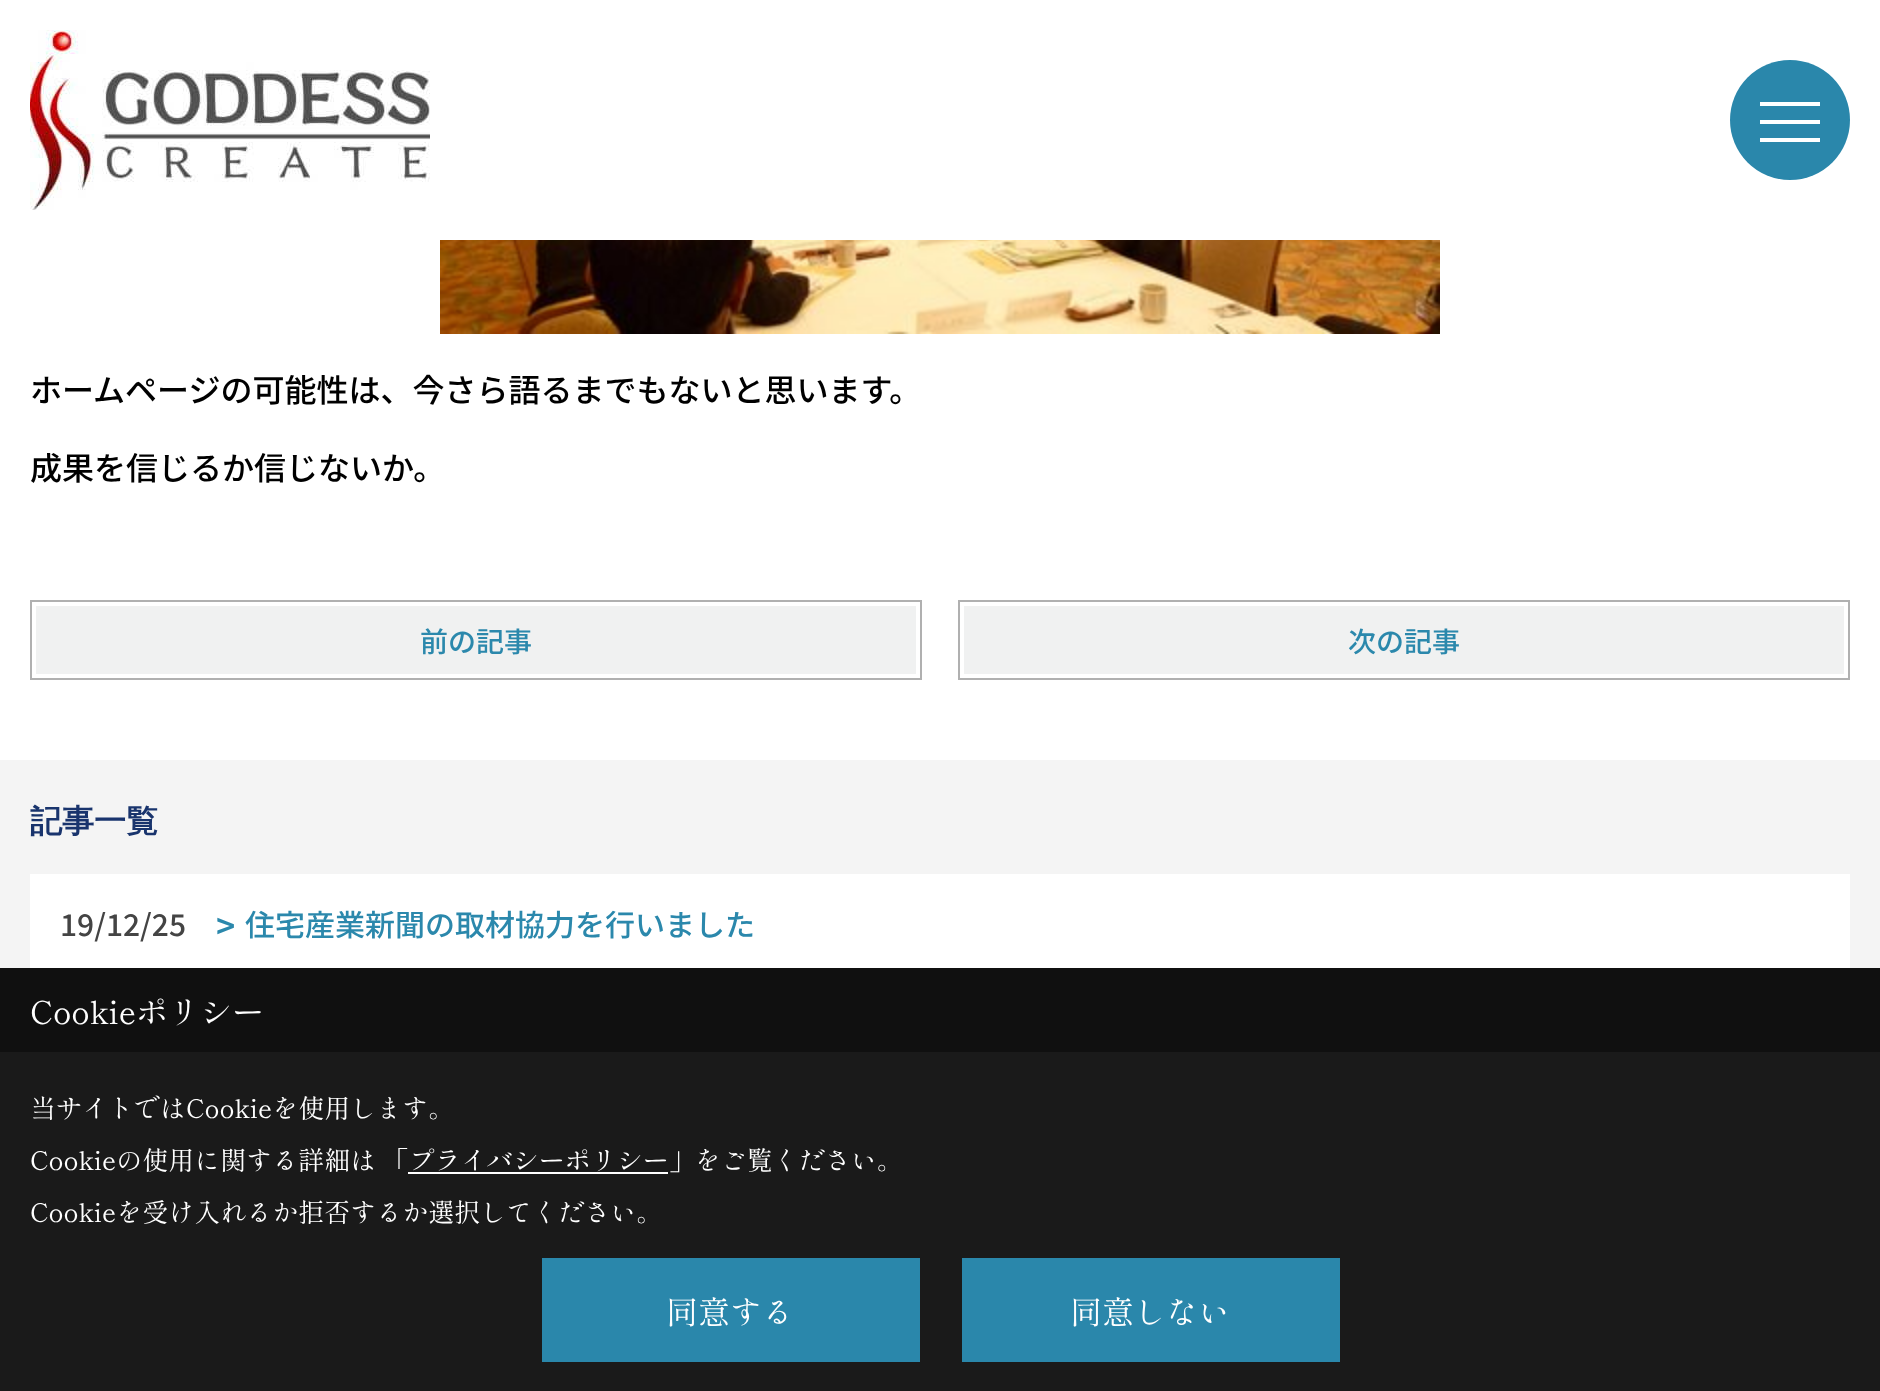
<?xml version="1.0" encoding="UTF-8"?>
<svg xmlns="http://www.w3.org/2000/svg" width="1880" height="1391">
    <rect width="100%" height="100%" fill="#FFFFFF"/>
    <image x="30" y="30" width="400" height="180" href="img_01.png"/>
    <circle cx="1790" cy="120" r="60" fill="#2A87AB"/>
    <rect x="1760" y="102" width="60" height="4" fill="#FFFFFF"/>
    <rect x="1760" y="120" width="60" height="4" fill="#FFFFFF"/>
    <rect x="1760" y="138" width="60" height="4" fill="#FFFFFF"/>
    <image x="440" y="240" width="1000" height="94" href="img_02.png"/>
    <text x="30" y="402" font-family="Noto Sans JP" font-size="32" font-weight="500" fill="#000000">ホームページの可能性は、今さら語るまでもないと思います。</text>
    <text x="30" y="480" font-family="Noto Sans JP" font-size="32" font-weight="500" fill="#000000">成果を信じるか信じないか。</text>
    <rect x="31" y="601" width="890" height="78" fill="none" stroke="#B0B0B0" stroke-width="2"/>
    <rect x="36" y="606" width="880" height="68" fill="#F0F1F1"/>
    <text x="420" y="652" font-family="Noto Sans JP" font-size="28" font-weight="500" fill="#2B88AC">前の記事</text>
    <rect x="959" y="601" width="890" height="78" fill="none" stroke="#B0B0B0" stroke-width="2"/>
    <rect x="964" y="606" width="880" height="68" fill="#F0F1F1"/>
    <text x="1348" y="652" font-family="Noto Sans JP" font-size="28" font-weight="500" fill="#2B88AC">次の記事</text>
    <rect x="0" y="760" width="1880" height="208" fill="#F4F4F4"/>
    <text x="30" y="832" font-family="WenQuanYi Zen Hei" font-size="32" font-weight="700" fill="#19346D">記事一覧</text>
    <rect x="30" y="874" width="1820" height="94" fill="#FFFFFF"/>
    <text x="60" y="936" font-family="Noto Sans JP" font-size="30" font-weight="500" fill="#444444">19/12/25</text>
    <text x="216" y="936" font-family="DejaVu Sans Mono" font-size="32" font-weight="700" fill="#2B88AC">&gt;</text>
    <text x="245" y="936" font-family="Noto Sans JP" font-size="30" font-weight="500" fill="#2B88AC">住宅産業新聞の取材協力を行いました</text>
    <rect x="0" y="968" width="1880" height="84" fill="#101010"/>
    <text x="30" y="1024" font-family="Shippori Mincho" font-size="32" fill="#FFFFFF">Cookieポリシー</text>
    <rect x="0" y="1052" width="1880" height="339" fill="#1A1A1A"/>
    <text x="30" y="1118" font-family="Shippori Mincho" font-size="26" fill="#FFFFFF">当サイトではCookieを使用します。</text>
    <text x="30" y="1170" font-family="Shippori Mincho" font-size="26" fill="#FFFFFF">Cookieの使用に関する詳細は 「プライバシーポリシー」をご覧ください。</text>
    <rect x="408" y="1172" width="260" height="2" fill="#FFFFFF"/>
    <text x="30" y="1222" font-family="Shippori Mincho" font-size="26" fill="#FFFFFF">Cookieを受け入れるか拒否するか選択してください。</text>
    <rect x="542" y="1258" width="378" height="104" fill="#2A87AB"/>
    <text x="666" y="1324" font-family="Shippori Mincho" font-size="32" fill="#FFFFFF">同意する</text>
    <rect x="962" y="1258" width="378" height="104" fill="#2A87AB"/>
    <text x="1070" y="1324" font-family="Shippori Mincho" font-size="32" fill="#FFFFFF">同意しない</text>
</svg>
